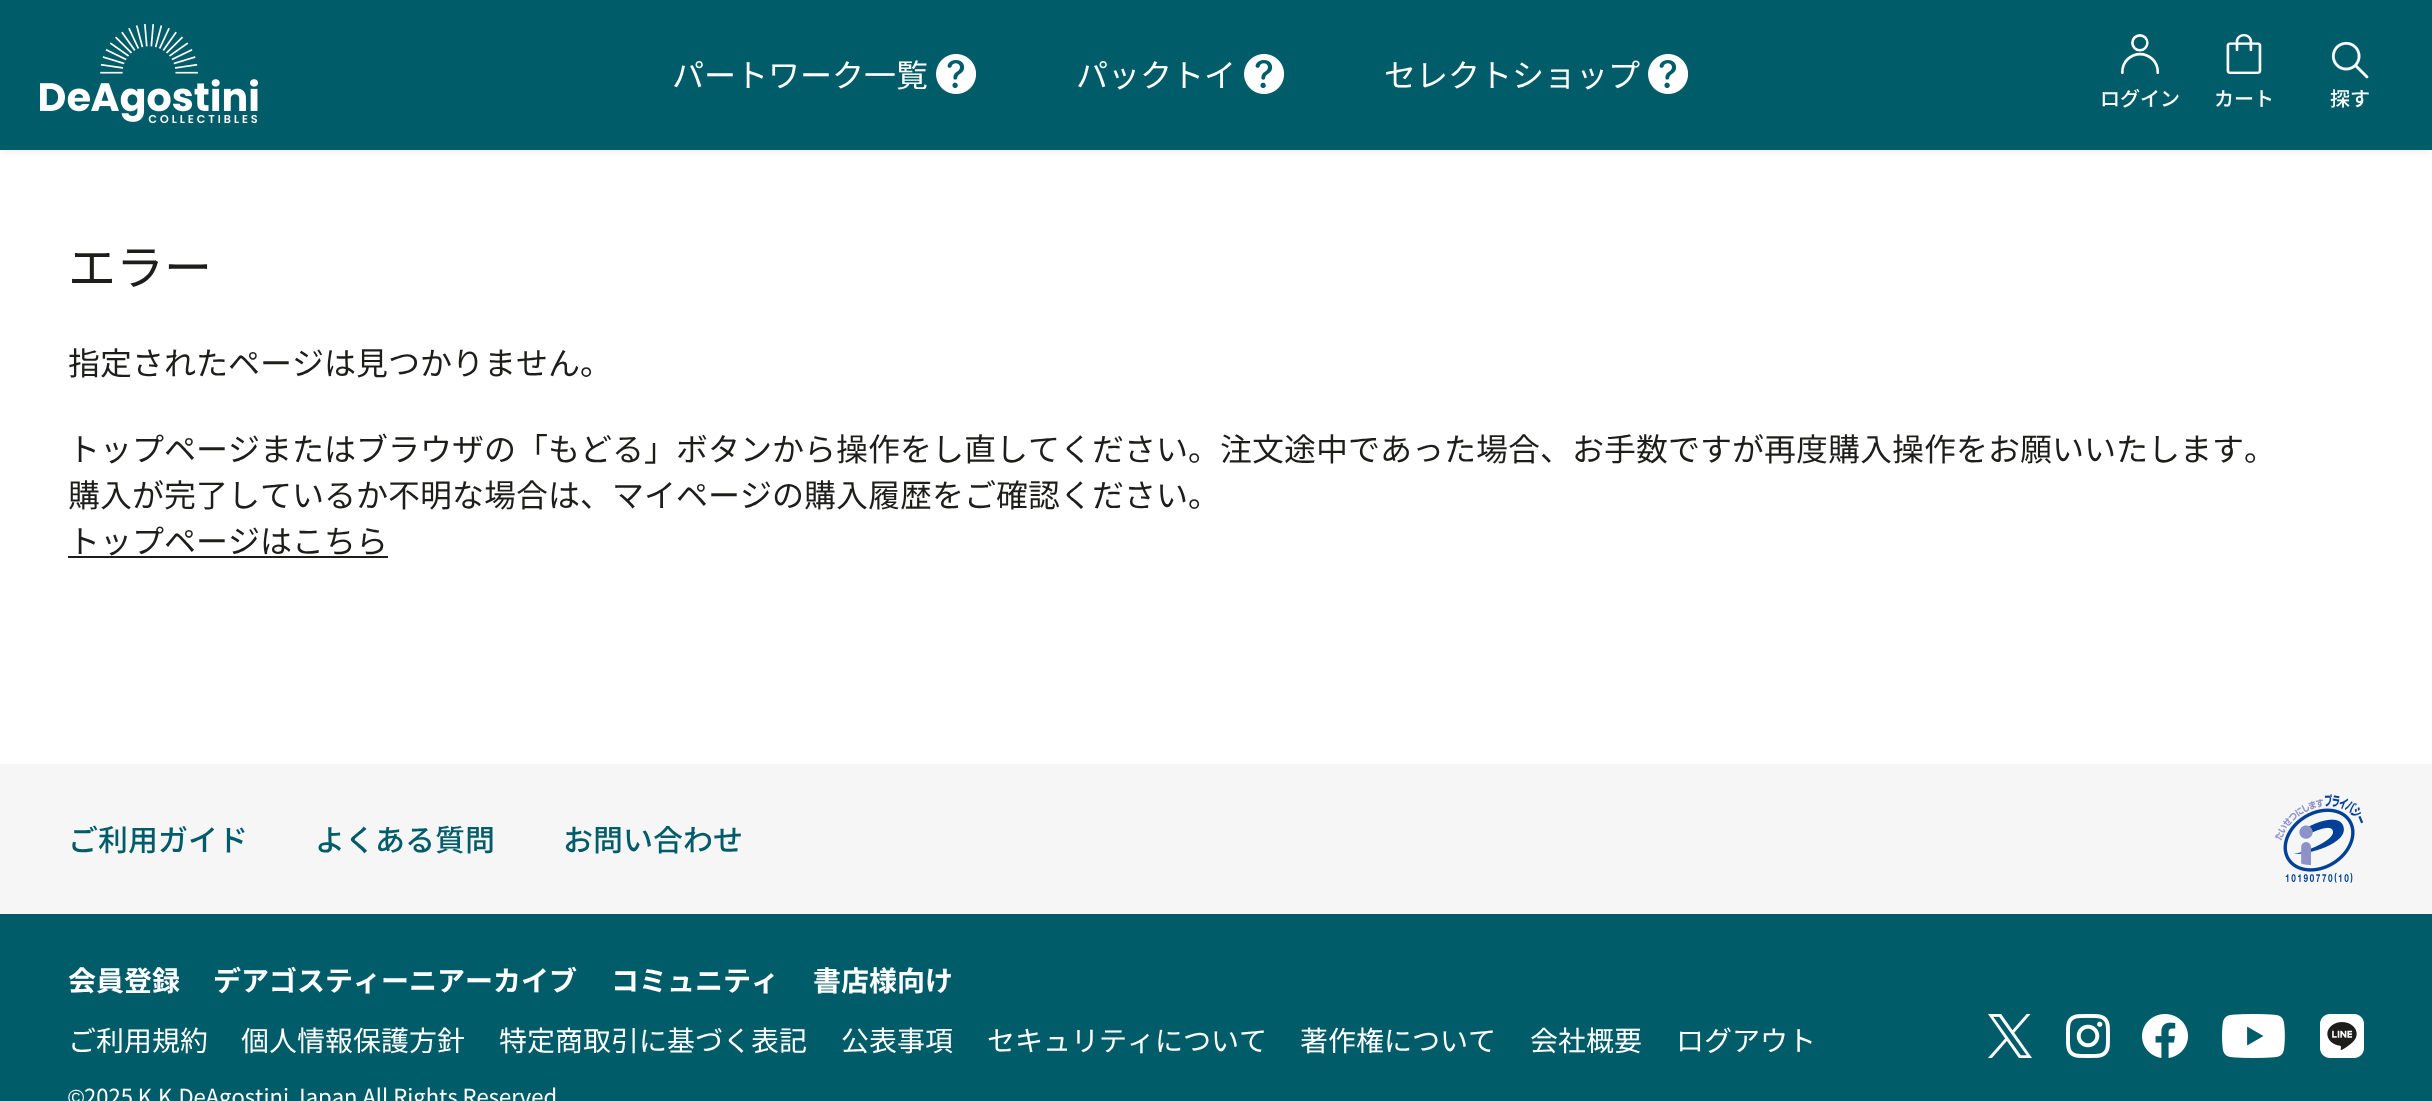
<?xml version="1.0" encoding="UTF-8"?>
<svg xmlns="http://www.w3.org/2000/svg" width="2432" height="1101">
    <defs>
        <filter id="blur1" x="-50%" y="-200%" width="200%" height="500%"><feGaussianBlur stdDeviation="4"/></filter>
    </defs>
    <rect width="100%" height="100%" fill="#FFFFFF"/>
    <rect x="0" y="0" width="2432" height="150" fill="#000000" fill-opacity="0.1" filter="url(#blur1)"/>
    <rect x="0" y="0" width="2432" height="150" fill="#005C69"/>
    <image x="40" y="24" width="219" height="100" href="img_01.png"/>
    <text x="672" y="87" font-family="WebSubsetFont" font-size="32" fill="#FFFFFF">パートワーク一覧</text>
    <image x="936" y="54" width="40" height="40" href="img_02.png"/>
    <text x="1076" y="87" font-family="WebSubsetFont" font-size="32" fill="#FFFFFF">パックトイ</text>
    <image x="1244" y="54" width="40" height="40" href="img_02.png"/>
    <text x="1384" y="87" font-family="WebSubsetFont" font-size="32" fill="#FFFFFF">セレクトショップ</text>
    <image x="1648" y="54" width="40" height="40" href="img_02.png"/>
    <image x="2121" y="34" width="38" height="40" href="img_03.png"/>
    <text x="2100" y="106" font-family="WebSubsetFont" font-size="20" font-weight="500" fill="#FFFFFF">ログイン</text>
    <image x="2226" y="34" width="36" height="40" href="img_04.png"/>
    <text x="2214" y="106" font-family="WebSubsetFont" font-size="20" font-weight="500" fill="#FFFFFF">カート</text>
    <image x="2331" y="41" width="38" height="38" href="img_05.png"/>
    <text x="2330" y="106" font-family="WebSubsetFont" font-size="20" font-weight="500" fill="#FFFFFF">探す</text>
    <text x="68" y="285" font-family="WebSubsetFont" font-size="48" fill="#1D1D1B">エラー</text>
    <text x="68" y="375" font-family="WebSubsetFont" font-size="32" fill="#1D1D1B">指定されたページは見つかりません。</text>
    <text font-family="WebSubsetFont" font-size="32" fill="#1D1D1B">
        <tspan x="68" y="461">トップページまたはブラウザの「もどる」ボタンから操作をし直してください。注文途中であった場合、お手数ですが再度購入操作をお願いいたします。</tspan>
        <tspan x="68" y="507">購入が完了しているか不明な場合は、マイページの購入履歴をご確認ください。</tspan>
        <tspan x="68" y="553">トップページはこちら</tspan>
    </text>
    <rect x="68" y="556" width="320" height="2" fill="#1D1D1B"/>
    <rect x="0" y="764" width="2432" height="150" fill="#F6F6F6"/>
    <text x="68" y="851" font-family="WebSubsetFont" font-size="30" font-weight="500" fill="#005C69">ご利用ガイド</text>
    <text x="315" y="851" font-family="WebSubsetFont" font-size="30" font-weight="500" fill="#005C69">よくある質問</text>
    <text x="563" y="851" font-family="WebSubsetFont" font-size="30" font-weight="500" fill="#005C69">お問い合わせ</text>
    <image x="2274" y="794" width="90" height="89" href="img_06.png"/>
    <rect x="0" y="914" width="2432" height="187" fill="#005C69"/>
    <text x="68" y="991" font-family="WebSubsetFont" font-size="28" font-weight="700" fill="#FFFFFF">会員登録</text>
    <text x="213" y="991" font-family="WebSubsetFont" font-size="28" font-weight="700" fill="#FFFFFF">デアゴスティーニアーカイブ</text>
    <text x="611" y="991" font-family="WebSubsetFont" font-size="28" font-weight="700" fill="#FFFFFF">コミュニティ</text>
    <text x="813" y="991" font-family="WebSubsetFont" font-size="28" font-weight="700" fill="#FFFFFF">書店様向け</text>
    <text x="68" y="1051" font-family="WebSubsetFont" font-size="28" fill="#FFFFFF">ご利用規約</text>
    <text x="241" y="1051" font-family="WebSubsetFont" font-size="28" fill="#FFFFFF">個人情報保護方針</text>
    <text x="499" y="1051" font-family="WebSubsetFont" font-size="28" fill="#FFFFFF">特定商取引に基づく表記</text>
    <text x="841" y="1051" font-family="WebSubsetFont" font-size="28" fill="#FFFFFF">公表事項</text>
    <text x="987" y="1051" font-family="WebSubsetFont" font-size="28" fill="#FFFFFF">セキュリティについて</text>
    <text x="1300" y="1051" font-family="WebSubsetFont" font-size="28" fill="#FFFFFF">著作権について</text>
    <text x="1530" y="1051" font-family="WebSubsetFont" font-size="28" fill="#FFFFFF">会社概要</text>
    <text x="1676" y="1051" font-family="WebSubsetFont" font-size="28" fill="#FFFFFF">ログアウト</text>
    <text x="68" y="1105" font-family="Liberation Sans" font-size="22" fill="#FFFFFF">©</text>
    <text x="84" y="1105" font-family="WebSubsetFont" font-size="22" fill="#FFFFFF">2025 K.K.DeAgostini Japan All Rights Reserved</text>
    <image x="1988" y="1014" width="44" height="44" href="img_07.png"/>
    <image x="2066" y="1014" width="44" height="44" href="img_08.png"/>
    <image x="2142" y="1014" width="46" height="44" href="img_09.png"/>
    <image x="2222" y="1014" width="63" height="44" href="img_10.png"/>
    <image x="2320" y="1014" width="44" height="44" href="img_11.png"/>
</svg>
